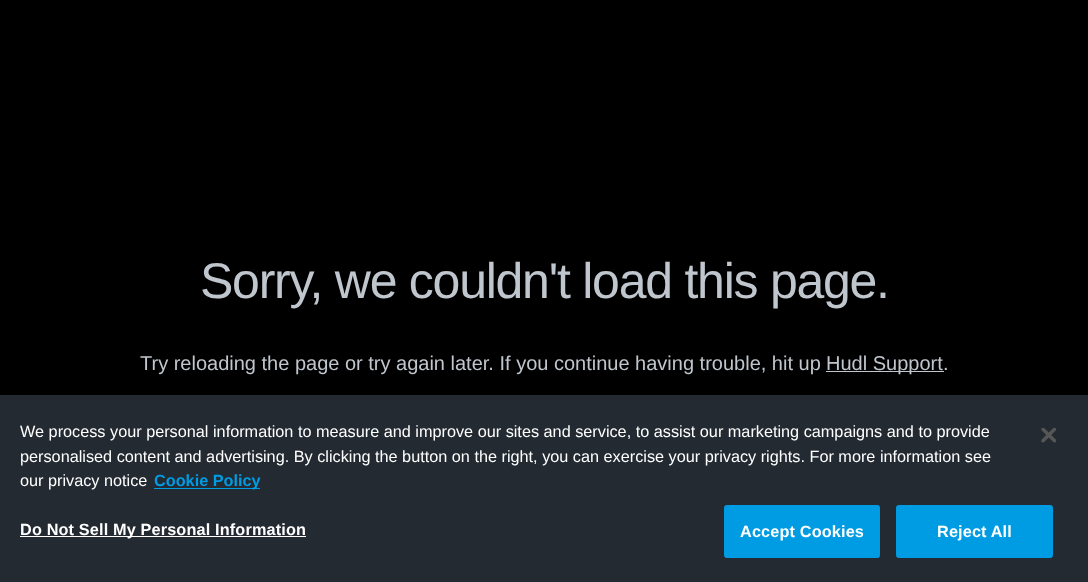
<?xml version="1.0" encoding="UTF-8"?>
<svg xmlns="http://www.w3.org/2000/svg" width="1088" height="582">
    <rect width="100%" height="100%" fill="#000000"/>
    <text x="200" y="298" font-family="Liberation Sans" font-size="50" letter-spacing="-1.25" fill="#C0C6CD">Sorry, we couldn't load this page.</text>
    <text x="140" y="370" font-family="Liberation Sans" font-size="20" fill="#C0C6CD">Try reloading the page or try again later. If you continue having trouble, hit up</text>
    <rect x="826" y="371" width="118" height="1" fill="#C0C6CD"/>
    <text x="826" y="370" font-family="Liberation Sans" font-size="20" fill="#C0C6CD">Hudl Support</text>
    <text x="943" y="370" font-family="Liberation Sans" font-size="20" fill="#C0C6CD">.</text>
    <rect x="0" y="395" width="1088" height="187" fill="#232A31"/>
    <text font-family="Liberation Sans" font-size="16.25" fill="#FFFFFF">
        <tspan x="20" y="437">We process your personal information to measure and improve our sites and service, to assist our marketing campaigns and to provide</tspan>
        <tspan x="20" y="462">personalised content and advertising. By clicking the button on the right, you can exercise your privacy rights. For more information see</tspan>
        <tspan x="20" y="486">our privacy notice</tspan>
    </text>
    <rect x="154" y="488" width="106" height="1" fill="#009CE3"/>
    <text x="154" y="486" font-family="Liberation Sans" font-size="16.25" font-weight="700" fill="#009CE3">Cookie Policy</text>
    <rect x="20" y="536" width="286" height="1" fill="#FFFFFF"/>
    <text x="20" y="535" font-family="Liberation Sans" font-size="16.25" font-weight="700" letter-spacing="0.15" fill="#FFFFFF">Do Not Sell My Personal Information</text>
    <rect x="724.5" y="505.5" width="155" height="52" rx="2" fill="#009CE3" stroke="#009CE3"/>
    <text x="740" y="537" font-family="Liberation Sans" font-size="16.25" font-weight="700" letter-spacing="0.15" fill="#FFFFFF">Accept Cookies</text>
    <rect x="896.5" y="505.5" width="156" height="52" rx="2" fill="#009CE3" stroke="#009CE3"/>
    <text x="937" y="537" font-family="Liberation Sans" font-size="16.25" font-weight="700" letter-spacing="0.15" fill="#FFFFFF">Reject All</text>
    <image x="1041" y="428" width="15" height="15" href="img_01.png"/>
</svg>
